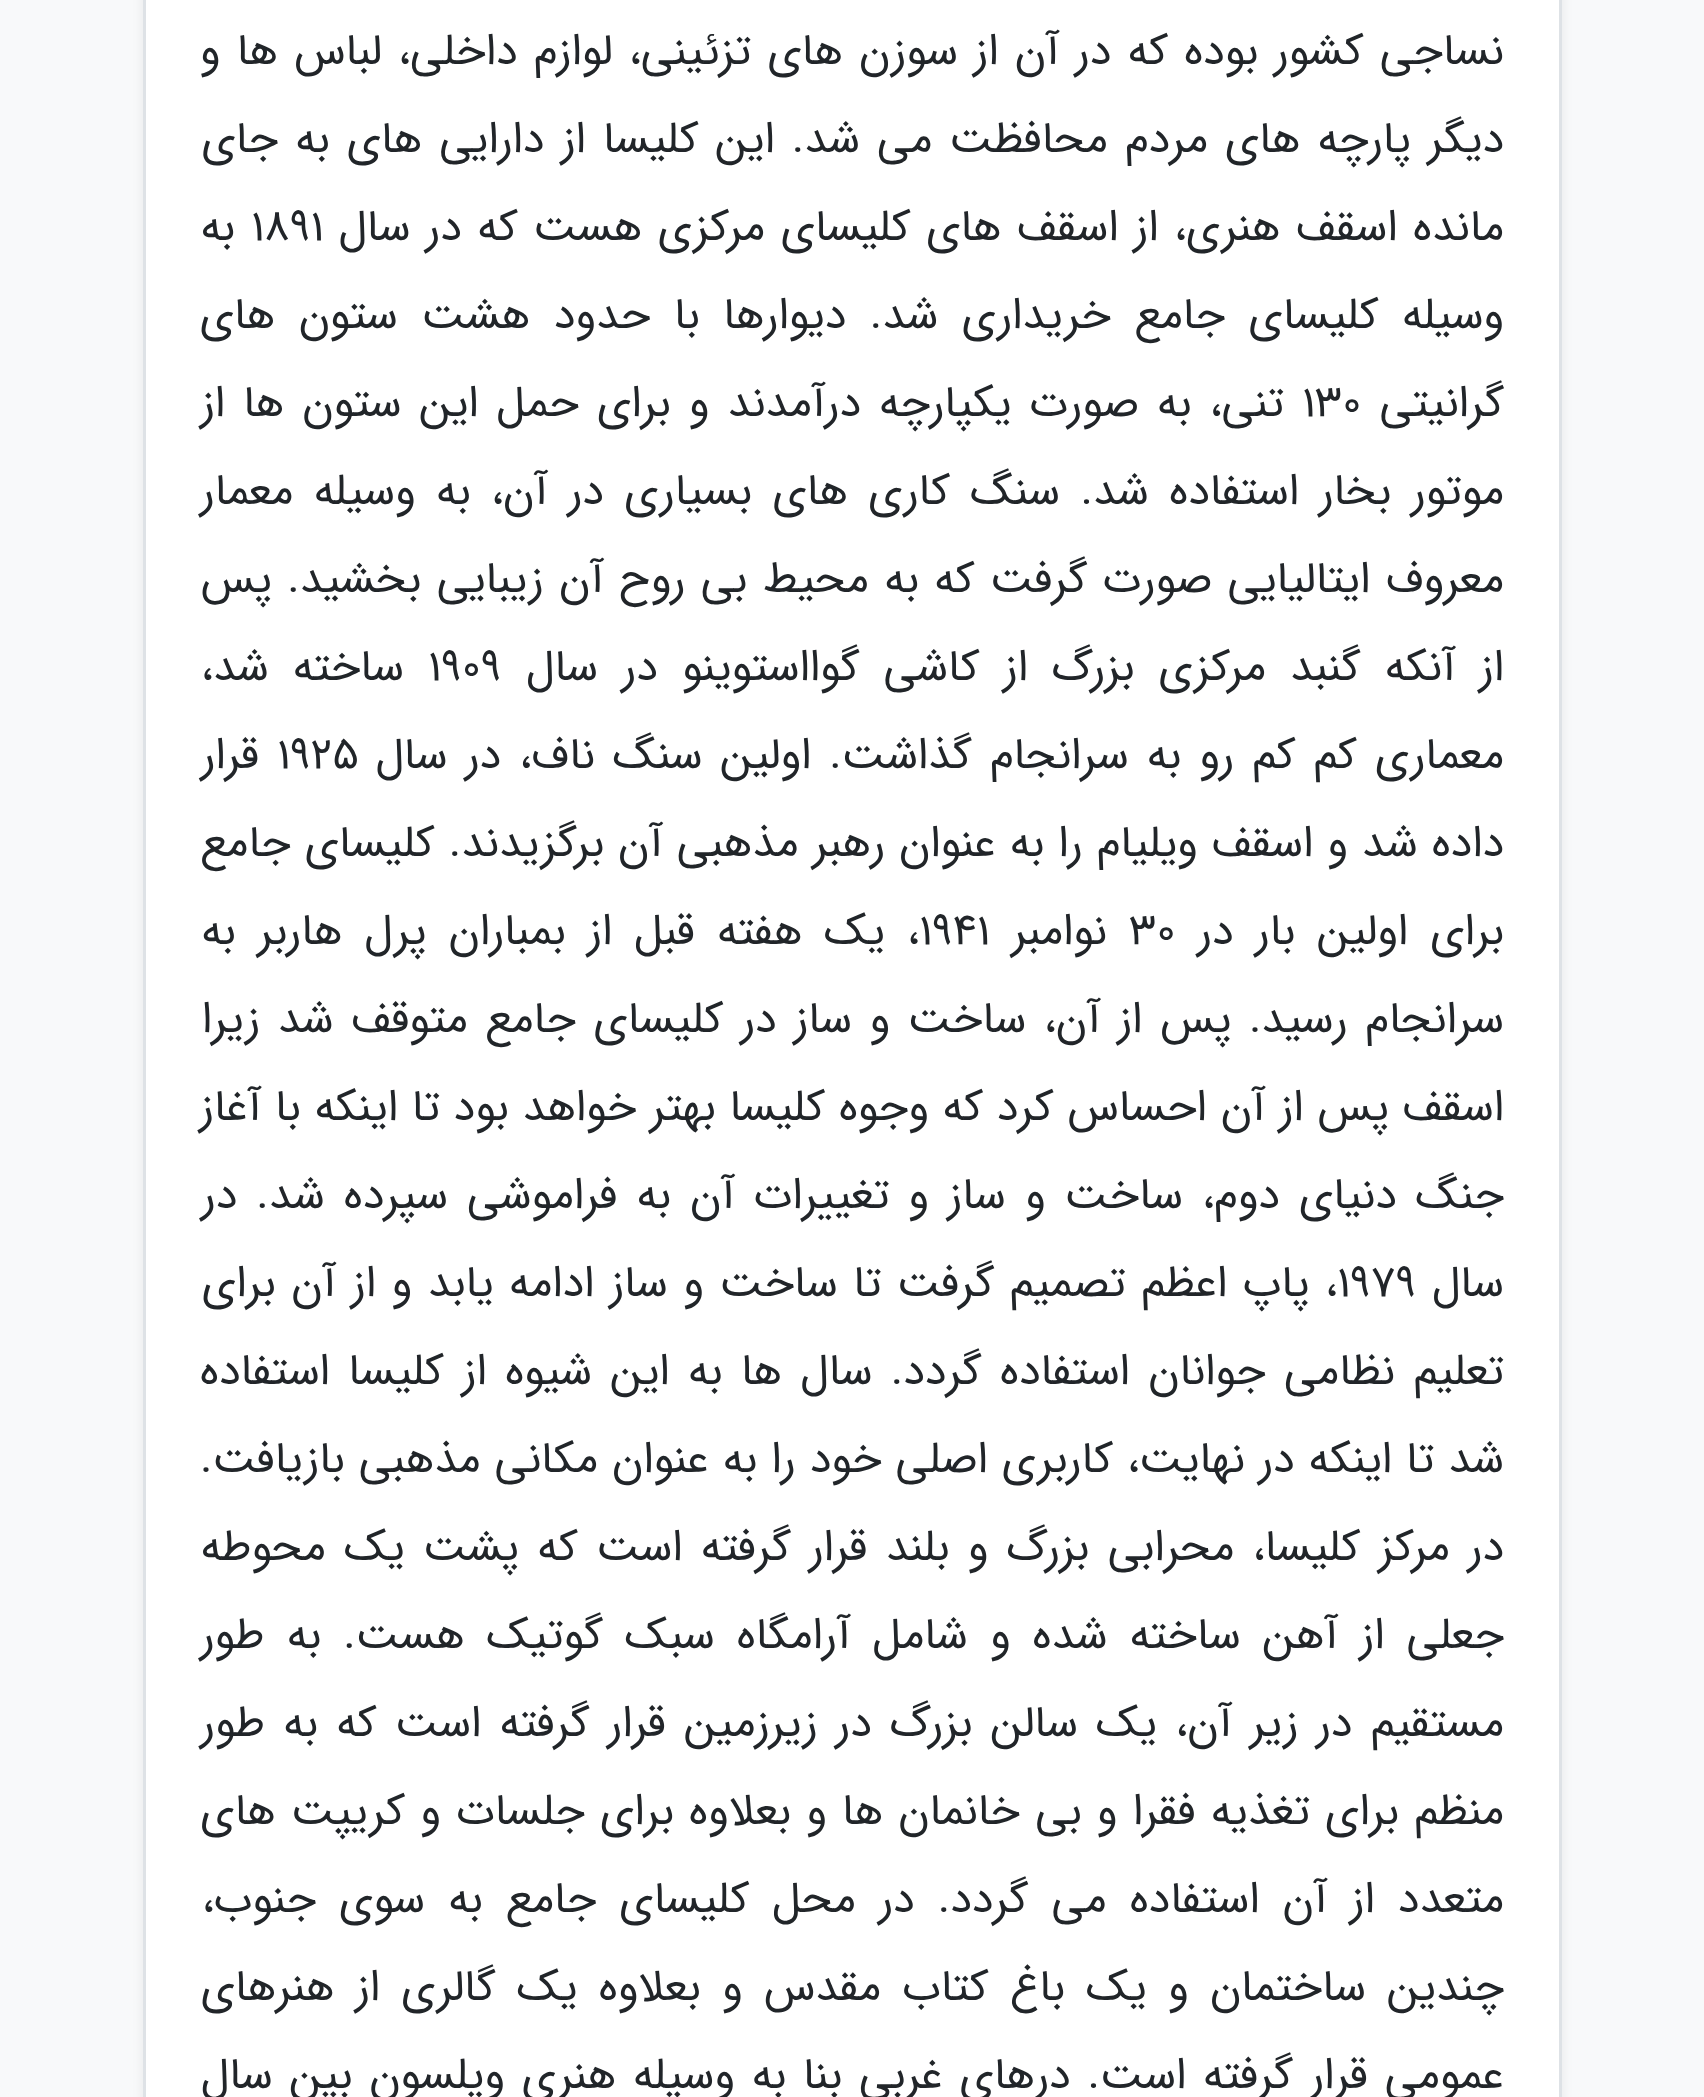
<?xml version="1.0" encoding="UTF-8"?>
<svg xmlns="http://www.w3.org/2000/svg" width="1704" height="2097">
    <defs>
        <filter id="blur1" x="-50%" y="-200%" width="200%" height="500%"><feGaussianBlur stdDeviation="5.5"/></filter>
    </defs>
    <rect width="100%" height="100%" fill="#F8F9FA"/>
    <rect x="143" y="-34" width="1419" height="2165" rx="17" fill="#000000" fill-opacity="0.07" filter="url(#blur1)"/>
    <rect x="144.5" y="-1.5" width="1416" height="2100" fill="#FFFFFF" stroke="#DEE2E6" stroke-width="3"/>
    <text x="1504" y="64" word-spacing="2.9" font-family="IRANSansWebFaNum" font-size="44" direction="rtl" fill="#212529">نساجی کشور بوده که در آن از سوزن های تزئینی، لوازم داخلی، لباس ها و</text>
    <text x="1504" y="152" word-spacing="3.75" font-family="IRANSansWebFaNum" font-size="44" direction="rtl" fill="#212529">دیگر پارچه های مردم محافظت می شد. این کلیسا از دارایی های به جای</text>
    <text x="1504" y="240" word-spacing="2.25" font-family="IRANSansWebFaNum" font-size="44" direction="rtl" fill="#212529">مانده اسقف هنری، از اسقف های کلیسای مرکزی هست که در سال</text>
    <text x="251" y="240" font-family="IRANSansWebFaNum" font-size="44" fill="#212529">1891</text>
    <text x="235" y="240" font-family="IRANSansWebFaNum" font-size="44" direction="rtl" fill="#212529">به</text>
    <text x="1504" y="328" word-spacing="10.25" font-family="IRANSansWebFaNum" font-size="44" direction="rtl" fill="#212529">وسیله کلیسای جامع خریداری شد. دیوارها با حدود هشت ستون های</text>
    <text x="1504" y="416" font-family="IRANSansWebFaNum" font-size="44" direction="rtl" fill="#212529">گرانیتی</text>
    <text x="1302" y="416" font-family="IRANSansWebFaNum" font-size="44" fill="#212529">130</text>
    <text x="1284" y="416" word-spacing="4.75" font-family="IRANSansWebFaNum" font-size="44" direction="rtl" fill="#212529">تنی، به صورت یکپارچه درآمدند و برای حمل این ستون ها از</text>
    <text x="1504" y="504" word-spacing="7.1" font-family="IRANSansWebFaNum" font-size="44" direction="rtl" fill="#212529">موتور بخار استفاده شد. سنگ کاری های بسیاری در آن، به وسیله معمار</text>
    <text x="1504" y="592" word-spacing="2.1" font-family="IRANSansWebFaNum" font-size="44" direction="rtl" fill="#212529">معروف ایتالیایی صورت گرفت که به محیط بی روح آن زیبایی بخشید. پس</text>
    <text x="1504" y="680" word-spacing="10.75" font-family="IRANSansWebFaNum" font-size="44" direction="rtl" fill="#212529">از آنکه گنبد مرکزی بزرگ از کاشی گوااستوینو در سال</text>
    <text x="428" y="680" font-family="IRANSansWebFaNum" font-size="44" fill="#212529">1909</text>
    <text x="404" y="680" word-spacing="10.75" font-family="IRANSansWebFaNum" font-size="44" direction="rtl" fill="#212529">ساخته شد،</text>
    <text x="1504" y="768" word-spacing="4.75" font-family="IRANSansWebFaNum" font-size="44" direction="rtl" fill="#212529">معماری کم کم رو به سرانجام گذاشت. اولین سنگ ناف، در سال</text>
    <text x="277" y="768" font-family="IRANSansWebFaNum" font-size="44" fill="#212529">1925</text>
    <text x="259" y="768" font-family="IRANSansWebFaNum" font-size="44" direction="rtl" fill="#212529">قرار</text>
    <text x="1504" y="856" word-spacing="0.7" font-family="IRANSansWebFaNum" font-size="44" direction="rtl" fill="#212529">داده شد و اسقف ویلیام را به عنوان رهبر مذهبی آن برگزیدند. کلیسای جامع</text>
    <text x="1504" y="944" word-spacing="8.75" font-family="IRANSansWebFaNum" font-size="44" direction="rtl" fill="#212529">برای اولین بار در</text>
    <text x="1129" y="944" font-family="IRANSansWebFaNum" font-size="44" fill="#212529">30</text>
    <text x="1107" y="944" font-family="IRANSansWebFaNum" font-size="44" direction="rtl" fill="#212529">نوامبر</text>
    <text x="919" y="944" font-family="IRANSansWebFaNum" font-size="44" fill="#212529">1941</text>
    <text x="919" y="944" word-spacing="8.75" font-family="IRANSansWebFaNum" font-size="44" direction="rtl" fill="#212529">، یک هفته قبل از بمباران پرل هاربر به</text>
    <text x="1504" y="1032" word-spacing="4.25" font-family="IRANSansWebFaNum" font-size="44" direction="rtl" fill="#212529">سرانجام رسید. پس از آن، ساخت و ساز در کلیسای جامع متوقف شد زیرا</text>
    <text x="1504" y="1120" word-spacing="0.5" font-family="IRANSansWebFaNum" font-size="44" direction="rtl" fill="#212529">اسقف پس از آن احساس کرد که وجوه کلیسا بهتر خواهد بود تا اینکه با آغاز</text>
    <text x="1504" y="1208" word-spacing="5.75" font-family="IRANSansWebFaNum" font-size="44" direction="rtl" fill="#212529">جنگ دنیای دوم، ساخت و ساز و تغییرات آن به فراموشی سپرده شد. در</text>
    <text x="1504" y="1296" font-family="IRANSansWebFaNum" font-size="44" direction="rtl" fill="#212529">سال</text>
    <text x="1337" y="1296" font-family="IRANSansWebFaNum" font-size="44" fill="#212529">1979</text>
    <text x="1337" y="1296" word-spacing="2.25" font-family="IRANSansWebFaNum" font-size="44" direction="rtl" fill="#212529">، پاپ اعظم تصمیم گرفت تا ساخت و ساز ادامه یابد و از آن برای</text>
    <text x="1504" y="1384" word-spacing="5.1" font-family="IRANSansWebFaNum" font-size="44" direction="rtl" fill="#212529">تعلیم نظامی جوانان استفاده گردد. سال ها به این شیوه از کلیسا استفاده</text>
    <text x="1504" y="1472" word-spacing="0.7" font-family="IRANSansWebFaNum" font-size="44" direction="rtl" fill="#212529">شد تا اینکه در نهایت، کاربری اصلی خود را به عنوان مکانی مذهبی بازیافت.</text>
    <text x="1504" y="1560" word-spacing="5.1" font-family="IRANSansWebFaNum" font-size="44" direction="rtl" fill="#212529">در مرکز کلیسا، محرابی بزرگ و بلند قرار گرفته است که پشت یک محوطه</text>
    <text x="1504" y="1648" word-spacing="8.75" font-family="IRANSansWebFaNum" font-size="44" direction="rtl" fill="#212529">جعلی از آهن ساخته شده و شامل آرامگاه سبک گوتیک هست. به طور</text>
    <text x="1504" y="1736" word-spacing="5" font-family="IRANSansWebFaNum" font-size="44" direction="rtl" fill="#212529">مستقیم در زیر آن، یک سالن بزرگ در زیرزمین قرار گرفته است که به طور</text>
    <text x="1504" y="1824" word-spacing="1.9" font-family="IRANSansWebFaNum" font-size="44" direction="rtl" fill="#212529">منظم برای تغذیه فقرا و بی خانمان ها و بعلاوه برای جلسات و کریپت های</text>
    <text x="1504" y="1912" word-spacing="9.75" font-family="IRANSansWebFaNum" font-size="44" direction="rtl" fill="#212529">متعدد از آن استفاده می گردد. در محل کلیسای جامع به سوی جنوب،</text>
    <text x="1504" y="2000" word-spacing="8" font-family="IRANSansWebFaNum" font-size="44" direction="rtl" fill="#212529">چندین ساختمان و یک باغ کتاب مقدس و بعلاوه یک گالری از هنرهای</text>
    <text x="1504" y="2088" word-spacing="3.5" font-family="IRANSansWebFaNum" font-size="44" direction="rtl" fill="#212529">عمومی قرار گرفته است. درهای غربی بنا به وسیله هنری ویلسون بین سال</text>
</svg>
